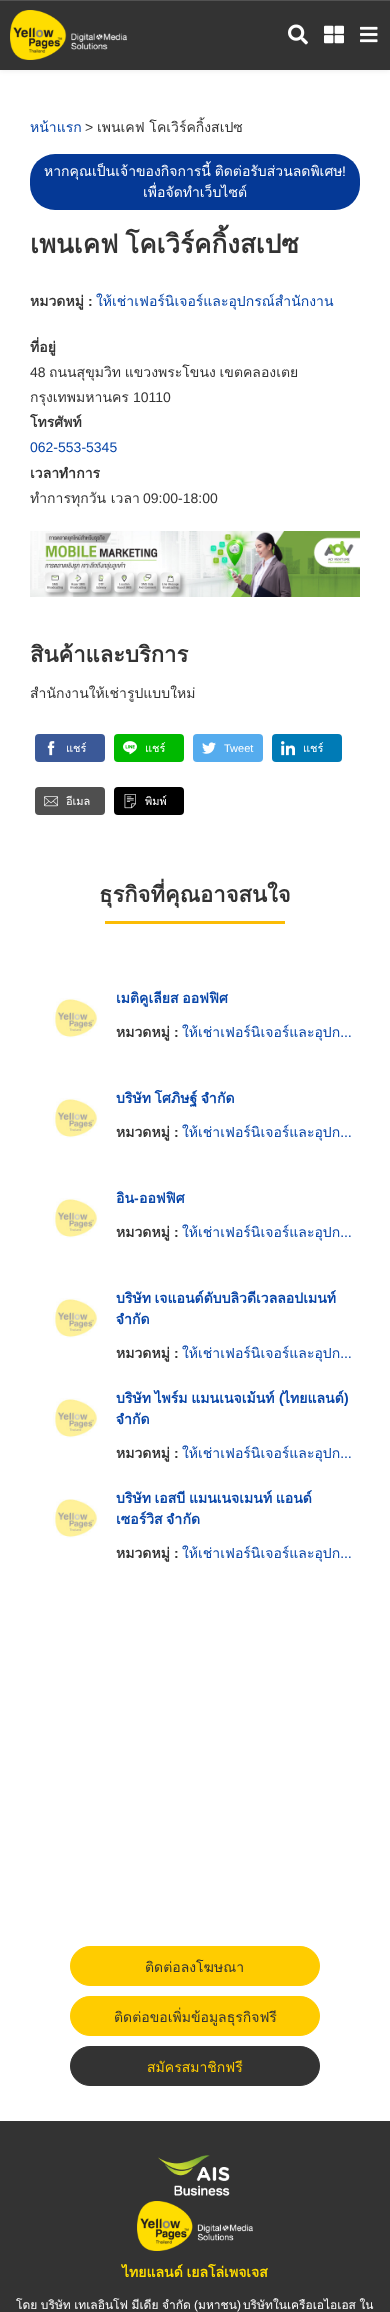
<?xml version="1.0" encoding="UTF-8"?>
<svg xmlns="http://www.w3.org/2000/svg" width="390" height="2312">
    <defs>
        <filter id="blur1" x="-50%" y="-200%" width="200%" height="500%"><feGaussianBlur stdDeviation="2.5"/></filter>
        <clipPath id="clip1"><rect x="116" y="1188" width="242" height="21"/></clipPath>
        <clipPath id="clip2"><rect x="116" y="1288" width="242" height="42"/></clipPath>
        <clipPath id="clip3"><rect x="116" y="1388" width="242" height="42"/></clipPath>
    </defs>
    <rect width="100%" height="100%" fill="#FFFFFF"/>
    <rect x="0" y="1" width="390" height="70" fill="#000000" fill-opacity="0.07" filter="url(#blur1)"/>
    <rect x="0" y="1" width="390" height="69" fill="#333333"/>
    <rect x="0" y="0" width="390" height="1" fill="#525252"/>
    <image x="10" y="10" width="117" height="50" href="img_01.png"/>
    <image x="288" y="24" width="20" height="21" href="img_02.png"/>
    <image x="324" y="25" width="20" height="19" href="img_03.png"/>
    <image x="360" y="26" width="18" height="17" href="img_04.png"/>
    <text x="30" y="132" font-family="Loma" font-size="14" fill="#0745A8">หน้าแรก</text>
    <text x="85" y="132" font-family="Liberation Sans" font-size="14" fill="#333333">&gt;</text>
    <text x="97" y="132" font-family="Loma" font-size="14" fill="#333333">เพนเคฟ โคเวิร์คกิ้งสเปซ</text>
    <rect x="30" y="154" width="330" height="56" rx="25" fill="#053996"/>
    <text x="44" y="176" word-spacing="-1" font-family="Loma" font-size="14" fill="#FFFFFF">หากคุณเป็นเจ้าของกิจการนี้ ติดต่อรับส่วนลดพิเศษ</text>
    <text x="342" y="176" font-family="Liberation Sans" font-size="14" fill="#FFFFFF">!</text>
    <text x="143" y="197" font-family="Loma" font-size="14" fill="#FFFFFF">เพื่อจัดทำเว็บไซต์</text>
    <text x="30" y="253" word-spacing="-2" font-family="Loma" font-size="26" font-weight="700" fill="#333333">เพนเคฟ โคเวิร์คกิ้งสเปซ</text>
    <text x="30" y="306" font-family="Loma" font-size="14" font-weight="700" fill="#333333">หมวดหมู่</text>
    <text x="88" y="306" font-family="Liberation Sans" font-size="14" font-weight="700" fill="#333333">:</text>
    <text x="96" y="306" font-family="Loma" font-size="14" fill="#0745A8">ให้เช่าเฟอร์นิเจอร์และอุปกรณ์สำนักงาน</text>
    <text x="30" y="352" font-family="Loma" font-size="14" font-weight="700" fill="#333333">ที่อยู่</text>
    <text x="30" y="377" font-family="Liberation Sans" font-size="14" fill="#333333">48</text>
    <text x="49" y="377" word-spacing="-1" font-family="Loma" font-size="14" fill="#333333">ถนนสุขุมวิท แขวงพระโขนง เขตคลองเตย</text>
    <text x="30" y="402" font-family="Loma" font-size="14" fill="#333333">กรุงเทพมหานคร</text>
    <text x="133" y="402" font-family="Liberation Sans" font-size="14" fill="#333333">10110</text>
    <text x="30" y="427" font-family="Loma" font-size="14" font-weight="700" fill="#333333">โทรศัพท์</text>
    <text x="30" y="452" font-family="Liberation Sans" font-size="14" fill="#0745A8">062-553-5345</text>
    <text x="30" y="478" font-family="Loma" font-size="14" font-weight="700" fill="#333333">เวลาทำการ</text>
    <text x="30" y="503" font-family="Loma" font-size="14" fill="#333333">ทำการทุกวัน เวลา</text>
    <text x="143" y="503" font-family="Liberation Sans" font-size="14" fill="#333333">09:00-18:00</text>
    <image x="30" y="531" width="330" height="66" href="img_05.png"/>
    <text x="30" y="662" font-family="Loma" font-size="22" font-weight="700" fill="#333333">สินค้าและบริการ</text>
    <text x="30" y="698" font-family="Loma" font-size="14" fill="#333333">สำนักงานให้เช่ารูปแบบใหม่</text>
    <rect x="35" y="734" width="70" height="28" rx="4" fill="#3B5998"/>
    <image x="47" y="741" width="8" height="15" href="img_06.png"/>
    <text x="66" y="752" font-family="Loma" font-size="11" fill="#FFFFFF">แชร์</text>
    <rect x="114" y="734" width="70" height="28" rx="4" fill="#00B900"/>
    <image x="123" y="741" width="14" height="14" href="img_07.png"/>
    <text x="145" y="752" font-family="Loma" font-size="11" fill="#FFFFFF">แชร์</text>
    <rect x="193" y="734" width="70" height="28" rx="4" fill="#55ACEE"/>
    <image x="202" y="742" width="14" height="12" href="img_08.png"/>
    <text x="224" y="752" font-family="Liberation Sans" font-size="11" fill="#FFFFFF">Tweet</text>
    <rect x="272" y="734" width="70" height="28" rx="4" fill="#007BB6"/>
    <image x="281" y="741" width="14" height="15" href="img_09.png"/>
    <text x="303" y="752" font-family="Loma" font-size="11" fill="#FFFFFF">แชร์</text>
    <rect x="35" y="787" width="70" height="28" rx="4" fill="#4F4F4F"/>
    <image x="44" y="796" width="14" height="11" href="img_10.png"/>
    <text x="66" y="805" font-family="Loma" font-size="11" fill="#FFFFFF">อีเมล</text>
    <rect x="114" y="787" width="70" height="28" rx="4" fill="#000000"/>
    <image x="124" y="794" width="12" height="15" href="img_11.png"/>
    <text x="145" y="805" font-family="Loma" font-size="11" fill="#FFFFFF">พิมพ์</text>
    <text x="99" y="902" font-family="Loma" font-size="22" font-weight="700" fill="#333333">ธุรกิจที่คุณอาจสนใจ</text>
    <rect x="105" y="921" width="180" height="3" fill="#FBBC05"/>
    <image x="53" y="998" width="45" height="40" href="img_12.png"/>
    <text x="116" y="1003" word-spacing="-1" font-family="Loma" font-size="14" font-weight="700" fill="#0745A8">เมติคูเลียส ออฟฟิศ</text>
    <text x="116" y="1037" font-family="Loma" font-size="14" font-weight="700" fill="#333333">หมวดหมู่</text>
    <text x="174" y="1037" font-family="Liberation Sans" font-size="14" font-weight="700" fill="#333333">:</text>
    <text x="182" y="1037" font-family="Loma" font-size="14" fill="#0745A8">ให้เช่าเฟอร์นิเจอร์และอุปก…</text>
    <image x="53" y="1098" width="45" height="40" href="img_13.png"/>
    <text x="116" y="1103" word-spacing="-1" font-family="Loma" font-size="14" font-weight="700" fill="#0745A8">บริษัท โศภิษฐ์ จำกัด</text>
    <text x="116" y="1137" font-family="Loma" font-size="14" font-weight="700" fill="#333333">หมวดหมู่</text>
    <text x="174" y="1137" font-family="Liberation Sans" font-size="14" font-weight="700" fill="#333333">:</text>
    <text x="182" y="1137" font-family="Loma" font-size="14" fill="#0745A8">ให้เช่าเฟอร์นิเจอร์และอุปก…</text>
    <image x="53" y="1198" width="45" height="40" href="img_14.png"/>
    <g clip-path="url(#clip1)">
        <text x="116" y="1203" font-family="Loma" font-size="14" font-weight="700" fill="#0745A8">อิน</text>
    </g>
    <text x="134" y="1203" font-family="Liberation Sans" font-size="14" font-weight="700" fill="#0745A8">-</text>
    <text x="139" y="1203" font-family="Loma" font-size="14" font-weight="700" fill="#0745A8">ออฟฟิศ</text>
    <text x="116" y="1237" font-family="Loma" font-size="14" font-weight="700" fill="#333333">หมวดหมู่</text>
    <text x="174" y="1237" font-family="Liberation Sans" font-size="14" font-weight="700" fill="#333333">:</text>
    <text x="182" y="1237" font-family="Loma" font-size="14" fill="#0745A8">ให้เช่าเฟอร์นิเจอร์และอุปก…</text>
    <image x="53" y="1298" width="45" height="40" href="img_15.png"/>
    <text x="116" y="1303" word-spacing="-1" font-family="Loma" font-size="14" font-weight="700" fill="#0745A8">บริษัท เจแอนด์ดับบลิวดีเวลลอปเมนท์</text>
    <g clip-path="url(#clip2)">
        <text x="116" y="1324" font-family="Loma" font-size="14" font-weight="700" fill="#0745A8">จำกัด</text>
    </g>
    <text x="116" y="1358" font-family="Loma" font-size="14" font-weight="700" fill="#333333">หมวดหมู่</text>
    <text x="174" y="1358" font-family="Liberation Sans" font-size="14" font-weight="700" fill="#333333">:</text>
    <text x="182" y="1358" font-family="Loma" font-size="14" fill="#0745A8">ให้เช่าเฟอร์นิเจอร์และอุปก…</text>
    <image x="53" y="1398" width="45" height="40" href="img_14.png"/>
    <text x="116" y="1403" word-spacing="-1" font-family="Loma" font-size="14" font-weight="700" fill="#0745A8">บริษัท ไพร์ม แมนเนจเม้นท์</text>
    <text x="279" y="1403" font-family="Liberation Sans" font-size="14" font-weight="700" fill="#0745A8">(</text>
    <text x="283" y="1403" font-family="Loma" font-size="14" font-weight="700" fill="#0745A8">ไทยแลนด์</text>
    <text x="344" y="1403" font-family="Liberation Sans" font-size="14" font-weight="700" fill="#0745A8">)</text>
    <g clip-path="url(#clip3)">
        <text x="116" y="1424" font-family="Loma" font-size="14" font-weight="700" fill="#0745A8">จำกัด</text>
    </g>
    <text x="116" y="1458" font-family="Loma" font-size="14" font-weight="700" fill="#333333">หมวดหมู่</text>
    <text x="174" y="1458" font-family="Liberation Sans" font-size="14" font-weight="700" fill="#333333">:</text>
    <text x="182" y="1458" font-family="Loma" font-size="14" fill="#0745A8">ให้เช่าเฟอร์นิเจอร์และอุปก…</text>
    <image x="53" y="1499" width="45" height="39" href="img_16.png"/>
    <text font-family="Loma" font-size="14" font-weight="700" fill="#0745A8">
        <tspan x="116" y="1503" word-spacing="-1">บริษัท เอสบี แมนเนจเมนท์ แอนด์</tspan>
        <tspan x="116" y="1524" word-spacing="-1">เซอร์วิส จำกัด</tspan>
    </text>
    <text x="116" y="1558" font-family="Loma" font-size="14" font-weight="700" fill="#333333">หมวดหมู่</text>
    <text x="174" y="1558" font-family="Liberation Sans" font-size="14" font-weight="700" fill="#333333">:</text>
    <text x="182" y="1558" font-family="Loma" font-size="14" fill="#0745A8">ให้เช่าเฟอร์นิเจอร์และอุปก…</text>
    <rect x="70.5" y="1946.5" width="249" height="39" rx="19.5" fill="#FFCC00" stroke="#FFCC00"/>
    <text x="145" y="1972" font-family="Loma" font-size="14" fill="#333333">ติดต่อลงโฆษณา</text>
    <rect x="70.5" y="1996.5" width="249" height="39" rx="19.5" fill="#FFCC00" stroke="#FFCC00"/>
    <text x="114" y="2022" font-family="Loma" font-size="14" fill="#333333">ติดต่อขอเพิ่มข้อมูลธุรกิจฟรี</text>
    <rect x="70.5" y="2046.5" width="249" height="39" rx="19.5" fill="#333333" stroke="#333333"/>
    <text x="147" y="2072" font-family="Loma" font-size="14" fill="#FFCC00">สมัครสมาชิกฟรี</text>
    <rect x="0" y="2121" width="390" height="191" fill="#333333"/>
    <image x="158" y="2155" width="72" height="41" href="img_17.png"/>
    <image x="137" y="2201" width="116" height="50" href="img_18.png"/>
    <text x="122" y="2277" word-spacing="-1" font-family="Loma" font-size="14" font-weight="700" fill="#FFDD00">ไทยแลนด์ เยลโล่เพจเจส</text>
    <text x="16" y="2309" word-spacing="-0.5" font-family="Loma" font-size="12" fill="#FFFFFF">โดย บริษัท เทเลอินโฟ มีเดีย จำกัด</text>
    <text x="194" y="2309" font-family="Liberation Sans" font-size="12" fill="#FFFFFF">(</text>
    <text x="198" y="2309" font-family="Loma" font-size="12" fill="#FFFFFF">มหาชน</text>
    <text x="237" y="2309" font-family="Liberation Sans" font-size="12" fill="#FFFFFF">)</text>
    <text x="243" y="2309" word-spacing="-0.5" font-family="Loma" font-size="12" fill="#FFFFFF">บริษัทในเครือเอไอเอส ใน</text>
</svg>
